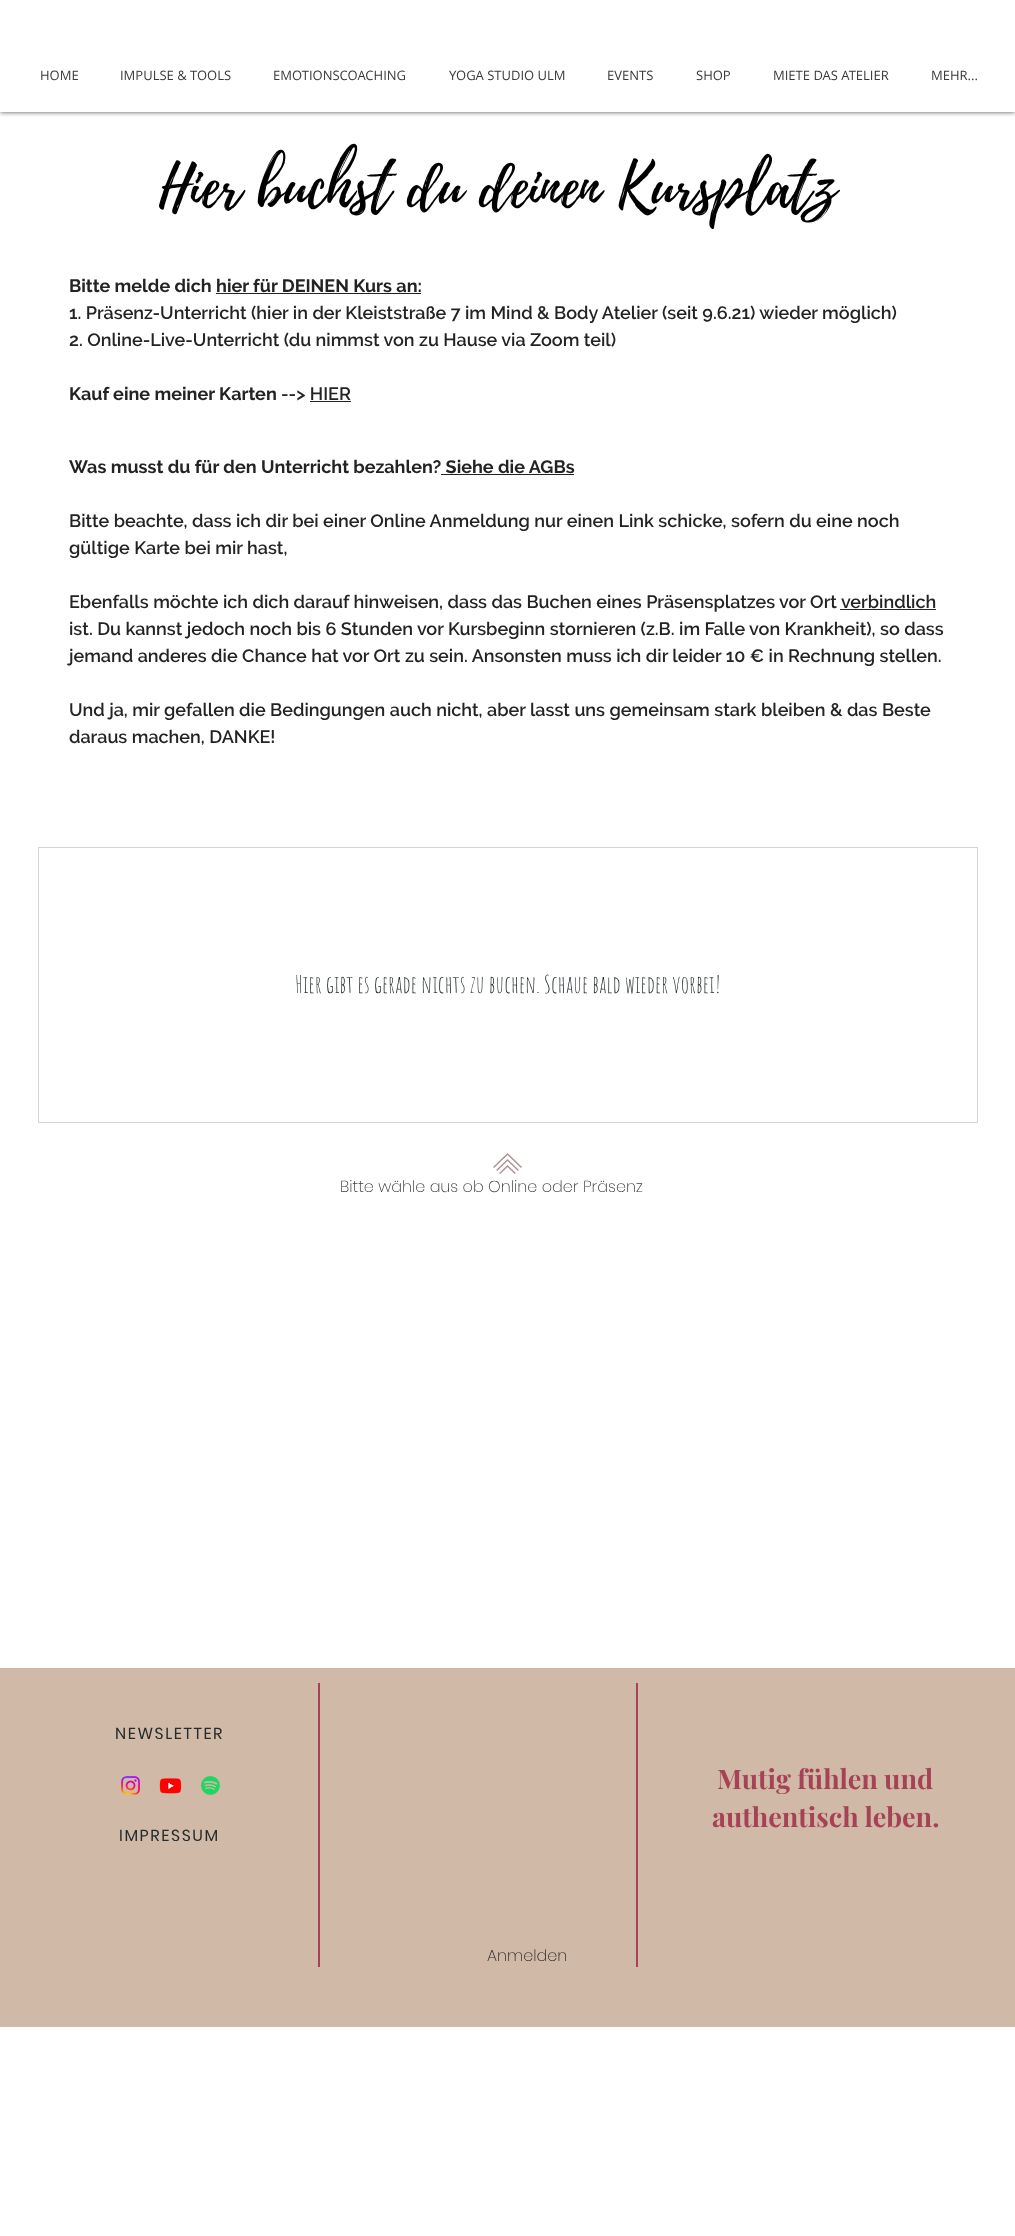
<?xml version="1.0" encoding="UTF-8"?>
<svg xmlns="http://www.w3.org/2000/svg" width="1015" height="2236">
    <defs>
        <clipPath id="clip1"><rect x="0" y="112" width="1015" height="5"/></clipPath>
        <filter id="blur1" x="-50%" y="-200%" width="200%" height="500%"><feGaussianBlur stdDeviation="2.5"/></filter>
    </defs>
    <rect width="100%" height="100%" fill="#FFFFFF"/>
    <g clip-path="url(#clip1)">
        <rect x="0" y="0" width="1015" height="112" fill="#000000" fill-opacity="0.7" filter="url(#blur1)"/>
    </g>
    <text x="40" y="80" font-family="Open Sans" font-size="13" fill="#393939">HOME</text>
    <text x="120" y="80" font-family="Open Sans" font-size="13" fill="#393939">IMPULSE &amp; TOOLS</text>
    <text x="273" y="80" font-family="Open Sans" font-size="13" fill="#393939">EMOTIONSCOACHING</text>
    <text x="449" y="80" font-family="Open Sans" font-size="13" fill="#393939">YOGA STUDIO ULM</text>
    <text x="607" y="80" font-family="Open Sans" font-size="13" fill="#393939">EVENTS</text>
    <text x="696" y="80" font-family="Open Sans" font-size="13" fill="#393939">SHOP</text>
    <text x="773" y="80" font-family="Open Sans" font-size="13" fill="#393939">MIETE DAS ATELIER</text>
    <text x="931" y="80" font-family="Open Sans" font-size="13" fill="#393939">MEHR...</text>
    <text x="159" y="205" font-family="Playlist" font-size="60" fill="#000000">Hier buchst du deinen Kursplatz</text>
    <text x="69" y="292" font-family="Raleway" font-size="18" font-weight="700" fill="#242323">Bitte melde dich hier für DEINEN Kurs an:</text>
    <rect x="216" y="293" width="205" height="1" fill="#242323"/>
    <text font-family="Raleway" font-size="18" font-weight="600" fill="#242323">
        <tspan x="69" y="319">1. Präsenz-Unterricht (hier in der Kleiststraße 7 im Mind &amp; Body Atelier (seit 9.6.21) wieder möglich)</tspan>
        <tspan x="69" y="346">2. Online-Live-Unterricht (du nimmst von zu Hause via Zoom teil)</tspan>
    </text>
    <text x="69" y="400" font-family="Raleway" font-size="18" font-weight="700" fill="#242323">Kauf eine meiner Karten</text>
    <text x="281" y="400" font-family="Raleway" font-size="18" font-weight="600" fill="#242323">--&gt; HIER</text>
    <rect x="310" y="401" width="41" height="1" fill="#242323"/>
    <text x="69" y="473" font-family="Raleway" font-size="18" font-weight="700" fill="#242323">Was musst du für den Unterricht bezahlen? Siehe die AGBs</text>
    <rect x="441" y="474" width="133" height="1" fill="#242323"/>
    <text font-family="Raleway" font-size="18" font-weight="600" fill="#242323">
        <tspan x="69" y="527">Bitte beachte, dass ich dir bei einer Online Anmeldung nur einen Link schicke, sofern du eine noch</tspan>
        <tspan x="69" y="554">gültige Karte bei mir hast,</tspan>
    </text>
    <text x="69" y="608" font-family="Raleway" font-size="18" font-weight="600" fill="#242323">Ebenfalls möchte ich dich darauf hinweisen, dass das Buchen eines Präsensplatzes vor Ort verbindlich</text>
    <rect x="840" y="609" width="96" height="1" fill="#242323"/>
    <text font-family="Raleway" font-size="18" font-weight="600" fill="#242323">
        <tspan x="69" y="635">ist. Du kannst jedoch noch bis 6 Stunden vor Kursbeginn stornieren (z.B. im Falle von Krankheit), so dass</tspan>
        <tspan x="69" y="662">jemand anderes die Chance hat vor Ort zu sein. Ansonsten muss ich dir leider 10 € in Rechnung stellen.</tspan>
    </text>
    <text font-family="Raleway" font-size="18" font-weight="600" fill="#242323">
        <tspan x="69" y="716">Und ja, mir gefallen die Bedingungen auch nicht, aber lasst uns gemeinsam stark bleiben &amp; das Beste</tspan>
        <tspan x="69" y="743">daraus machen, DANKE!</tspan>
    </text>
    <rect x="38.5" y="847.5" width="939" height="275" fill="none" stroke="#D3D6D6"/>
    <text x="295" y="993" font-family="Amatic SC" font-size="24" fill="#242C2D">Hier gibt es gerade nichts zu buchen. Schaue bald wieder vorbei!</text>
    <image x="493" y="1153" width="29" height="21" href="img_01.png"/>
    <text x="340" y="1192" font-family="Poppins" font-size="16" font-weight="200" fill="#393939">Bitte wähle aus ob Online oder Präsenz</text>
    <rect x="0" y="1668" width="1015" height="359" fill="#D1B9A7"/>
    <text x="115" y="1739" font-family="Poppins" font-size="16" letter-spacing="1.6" fill="#242C2D">NEWSLETTER</text>
    <rect x="318" y="1683" width="2" height="284" fill="#A64255"/>
    <rect x="636" y="1683" width="2" height="284" fill="#A64255"/>
    <image x="121" y="1776" width="19" height="19" href="img_02.png"/>
    <image x="159" y="1778" width="23" height="16" href="img_03.png"/>
    <image x="200" y="1776" width="20" height="19" href="img_04.png"/>
    <text x="717" y="1789" font-family="Playfair Display" font-size="27" font-weight="700" fill="#A64255">Mutig fühlen und</text>
    <text x="712" y="1827" font-family="Playfair Display" font-size="27" font-weight="700" fill="#A64255">authentisch leben.</text>
    <text x="119" y="1841" font-family="Poppins" font-size="16" letter-spacing="1.6" fill="#242C2D">IMPRESSUM</text>
    <text x="487" y="1961" font-family="Poppins" font-size="16" font-weight="200" fill="#2C2626">Anmelden</text>
</svg>
